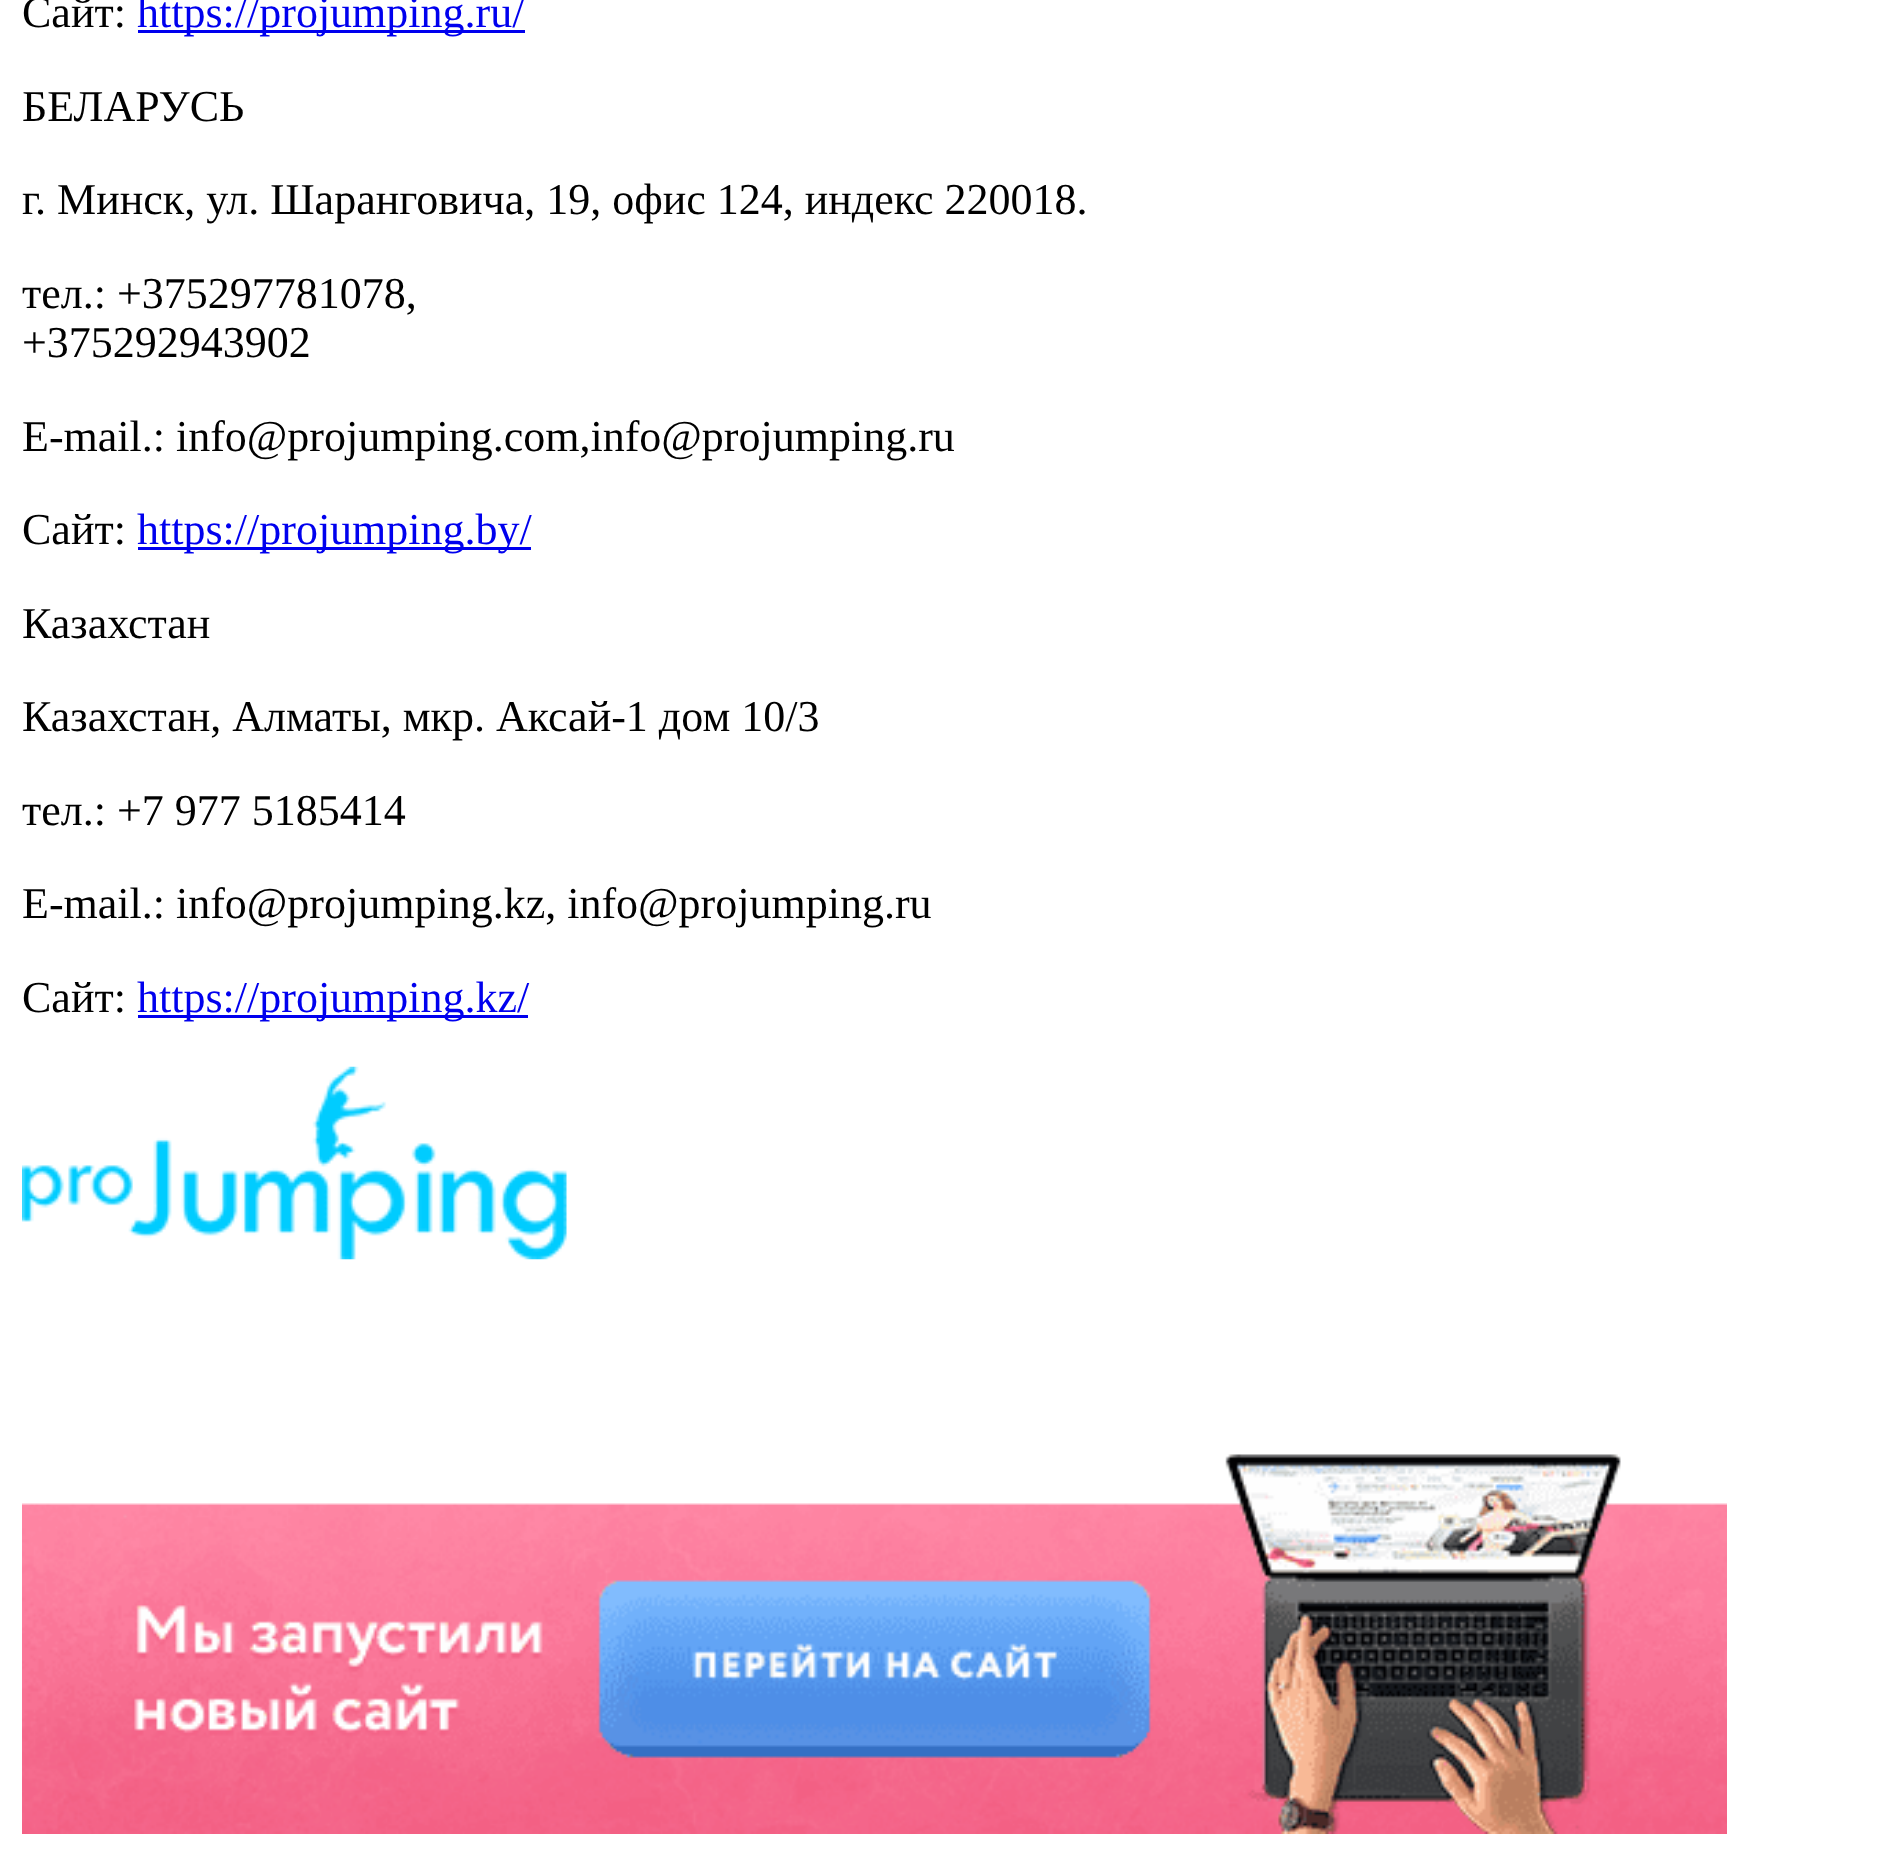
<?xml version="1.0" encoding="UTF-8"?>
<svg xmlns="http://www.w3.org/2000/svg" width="1885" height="1866">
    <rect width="100%" height="100%" fill="#FFFFFF"/>
    <text x="22" y="27" font-family="Liberation Serif" font-size="44" fill="#000000">Сайт:</text>
    <rect x="138" y="30" width="387" height="3" fill="#0000EE"/>
    <text x="137" y="27" font-family="Liberation Serif" font-size="44" fill="#0000EE">https://projumping.ru/</text>
    <text x="22" y="121" font-family="Liberation Serif" font-size="44" fill="#000000">БЕЛАРУСЬ</text>
    <text x="22" y="214" font-family="Liberation Serif" font-size="44" fill="#000000">г. Минск, ул. Шаранговича, 19, офис 124, индекс 220018.</text>
    <text font-family="Liberation Serif" font-size="44" fill="#000000">
        <tspan x="22" y="308">тел.: +375297781078,</tspan>
        <tspan x="22" y="357">+375292943902</tspan>
    </text>
    <text x="22" y="451" font-family="Liberation Serif" font-size="44" fill="#000000">E-mail.: info@projumping.com,info@projumping.ru</text>
    <text x="22" y="544" font-family="Liberation Serif" font-size="44" fill="#000000">Сайт:</text>
    <rect x="138" y="547" width="393" height="3" fill="#0000EE"/>
    <text x="137" y="544" font-family="Liberation Serif" font-size="44" fill="#0000EE">https://projumping.by/</text>
    <text x="22" y="638" font-family="Liberation Serif" font-size="44" fill="#000000">Казахстан</text>
    <text x="22" y="731" font-family="Liberation Serif" font-size="44" fill="#000000">Казахстан, Алматы, мкр. Аксай-1 дом 10/3</text>
    <text x="22" y="825" font-family="Liberation Serif" font-size="44" fill="#000000">тел.: +7 977 5185414</text>
    <text x="22" y="918" font-family="Liberation Serif" font-size="44" fill="#000000">E-mail.: info@projumping.kz, info@projumping.ru</text>
    <text x="22" y="1012" font-family="Liberation Serif" font-size="44" fill="#000000">Сайт:</text>
    <rect x="138" y="1015" width="390" height="3" fill="#0000EE"/>
    <text x="137" y="1012" font-family="Liberation Serif" font-size="44" fill="#0000EE">https://projumping.kz/</text>
    <image x="22" y="1066" width="545" height="194" href="img_01.png"/>
    <image x="22" y="1454" width="1705" height="380" href="img_02.png"/>
</svg>
